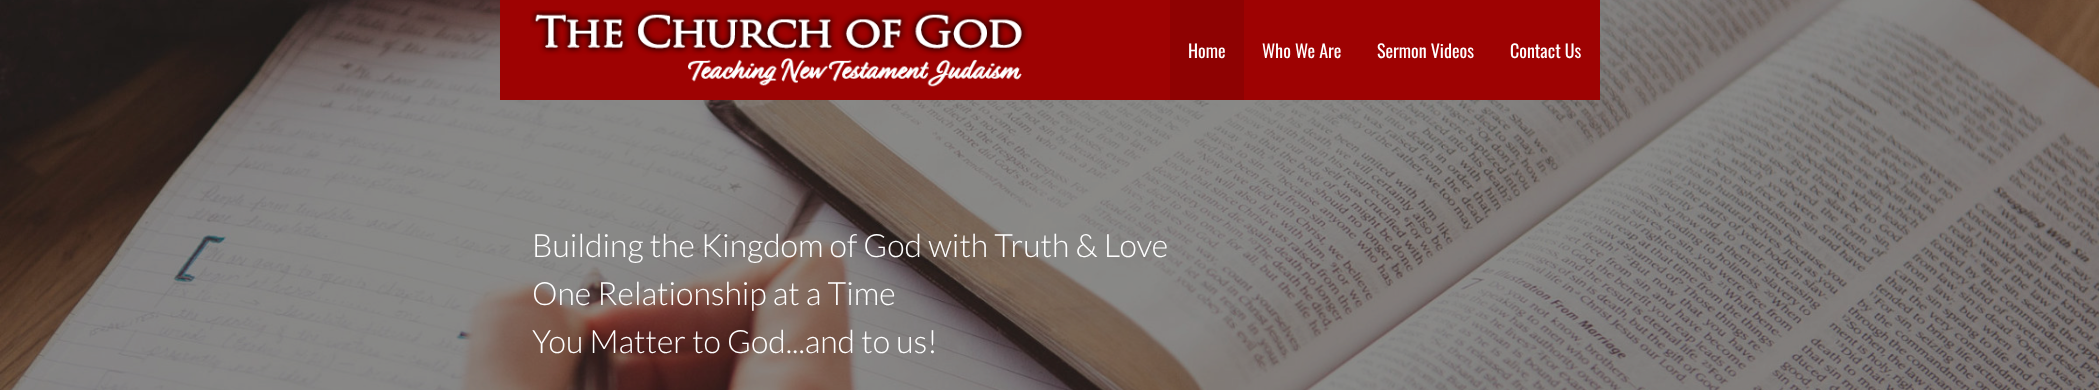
<?xml version="1.0" encoding="UTF-8"?>
<svg xmlns="http://www.w3.org/2000/svg" width="2099" height="390">
    <rect width="100%" height="100%" fill="#FFFFFF"/>
    <image x="0" y="0" width="2099" height="390" href="img_02.png"/>
    <rect x="500" y="0" width="1100" height="100" fill="#9E0202"/>
    <image x="530" y="10" width="498" height="77" href="img_01.png"/>
    <rect x="1170" y="0" width="74" height="100" fill="#8E0202"/>
    <text x="1188" y="58" font-family="Oswald" font-size="18" fill="#FFFFFF">Home</text>
    <text x="1262" y="58" font-family="Oswald" font-size="18" fill="#FFFFFF">Who We Are</text>
    <text x="1377" y="58" font-family="Oswald" font-size="18" fill="#FFFFFF">Sermon Videos</text>
    <text x="1510" y="58" font-family="Oswald" font-size="18" fill="#FFFFFF">Contact Us</text>
    <text font-family="Lato" font-size="32" font-weight="300" fill="#FFFFFF">
        <tspan x="532" y="257">Building the Kingdom of God with Truth &amp; Love</tspan>
        <tspan x="532" y="305">One Relationship at a Time</tspan>
        <tspan x="532" y="353">You Matter to God...and to us!</tspan>
    </text>
</svg>
